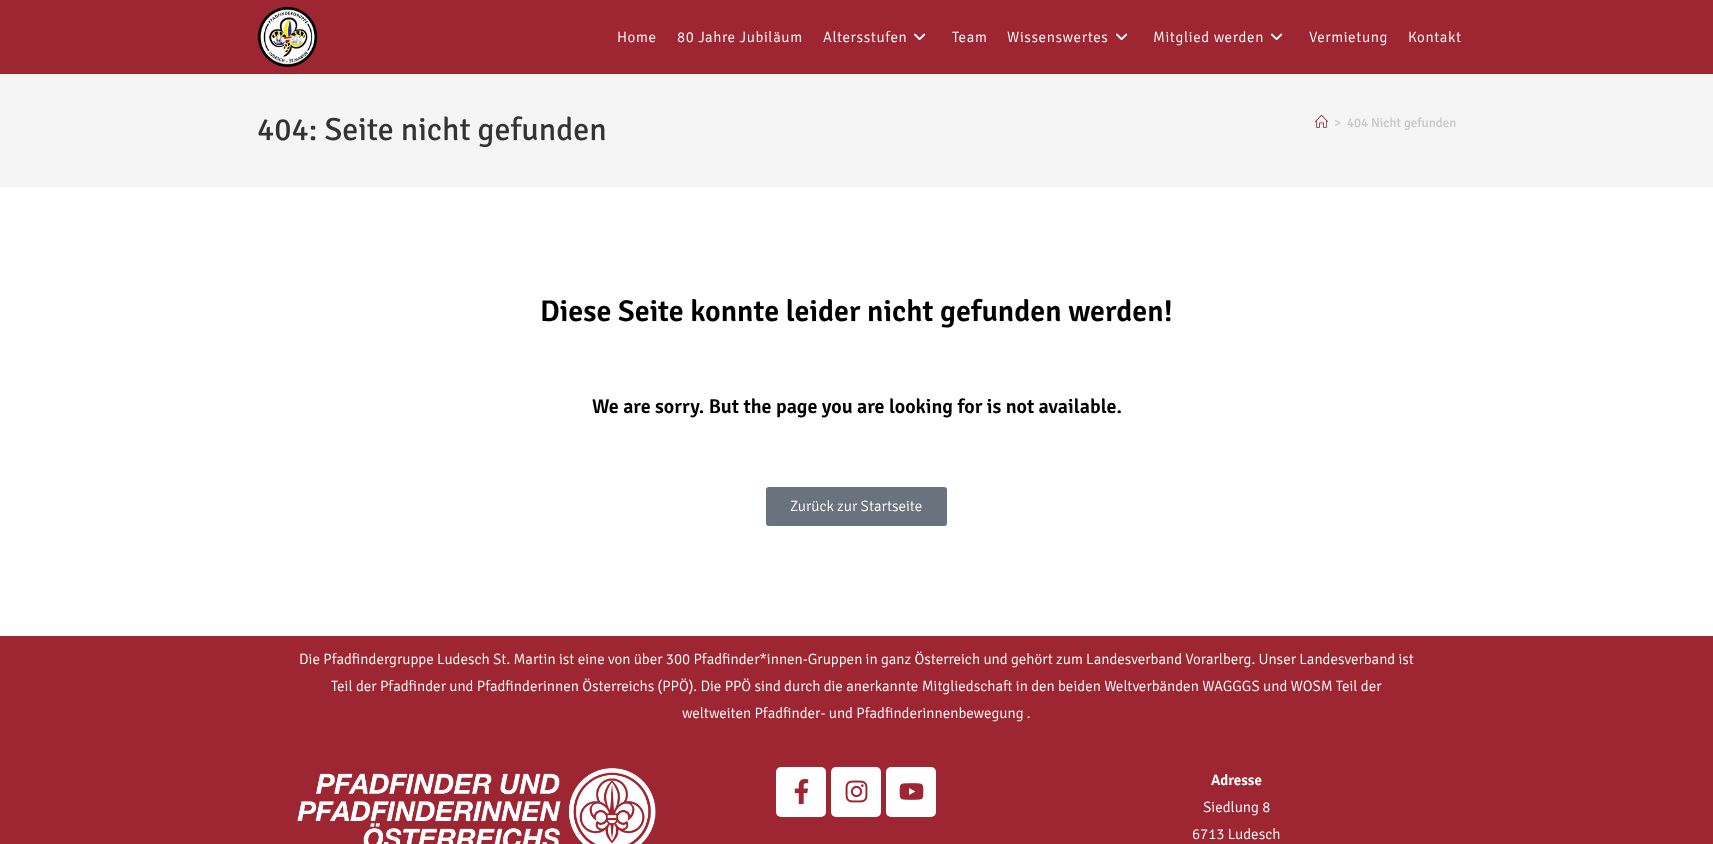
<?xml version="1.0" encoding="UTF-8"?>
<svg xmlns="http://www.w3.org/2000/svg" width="1713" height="844">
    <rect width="100%" height="100%" fill="#FFFFFF"/>
    <rect x="0" y="0" width="1713" height="74" fill="#9D2632"/>
    <image x="257" y="7" width="61" height="60" href="img_01.png"/>
    <text x="617" y="42" font-family="Signika" font-size="15" font-weight="300" letter-spacing="0.6" fill="#FFFFFF">Home</text>
    <text x="677" y="42" font-family="Signika" font-size="15" font-weight="300" letter-spacing="0.6" fill="#FFFFFF">80 Jahre Jubiläum</text>
    <text x="823" y="42" font-family="Signika" font-size="15" font-weight="300" letter-spacing="0.6" fill="#FFFFFF">Altersstufen</text>
    <image x="914" y="33" width="12" height="8" href="img_02.png"/>
    <text x="952" y="42" font-family="Signika" font-size="15" font-weight="300" letter-spacing="0.6" fill="#FFFFFF">Team</text>
    <text x="1007" y="42" font-family="Signika" font-size="15" font-weight="300" letter-spacing="0.6" fill="#FFFFFF">Wissenswertes</text>
    <image x="1116" y="33" width="12" height="8" href="img_02.png"/>
    <text x="1153" y="42" font-family="Signika" font-size="15" font-weight="300" letter-spacing="0.6" fill="#FFFFFF">Mitglied werden</text>
    <image x="1271" y="33" width="12" height="8" href="img_02.png"/>
    <text x="1309" y="42" font-family="Signika" font-size="15" font-weight="300" letter-spacing="0.6" fill="#FFFFFF">Vermietung</text>
    <text x="1408" y="42" font-family="Signika" font-size="15" font-weight="300" letter-spacing="0.6" fill="#FFFFFF">Kontakt</text>
    <rect x="0" y="74" width="1713" height="113" fill="#F5F5F5"/>
    <text x="257" y="140" font-family="Signika" font-size="32" fill="#333333">404: Seite nicht gefunden</text>
    <image x="1315" y="114" width="13" height="14" href="img_03.png"/>
    <text x="1334" y="127" font-family="Signika" font-size="13" fill="#C6C6C6">&gt;</text>
    <text x="1347" y="127" font-family="Signika" font-size="13" fill="#C6C6C6">404 Nicht gefunden</text>
    <text x="540" y="321" font-family="Signika" font-size="30" font-weight="600" fill="#000000">Diese Seite konnte leider nicht gefunden werden!</text>
    <text x="592" y="413" font-family="Signika" font-size="20" font-weight="600" fill="#000000">We are sorry. But the page you are looking for is not available.</text>
    <rect x="766" y="487" width="181" height="39" rx="3" fill="#69727D"/>
    <text x="790" y="511" font-family="Signika" font-size="15" font-weight="300" fill="#FFFFFF">Zurück zur Startseite</text>
    <rect x="0" y="636" width="1713" height="208" fill="#9D2632"/>
    <text x="299" y="664" font-family="Signika" font-size="15" font-weight="300" fill="#FFFFFF">Die Pfadfindergruppe Ludesch St. Martin ist eine von über 300 Pfadfinder*innen-Gruppen in ganz Österreich und gehört zum Landesverband Vorarlberg. Unser Landesverband ist</text>
    <text x="331" y="691" font-family="Signika" font-size="15" font-weight="300" fill="#FFFFFF">Teil der Pfadfinder und Pfadfinderinnen Österreichs (PPÖ). Die PPÖ sind durch die anerkannte Mitgliedschaft in den beiden Weltverbänden WAGGGS und WOSM Teil der</text>
    <text x="682" y="718" font-family="Signika" font-size="15" font-weight="300" fill="#FFFFFF">weltweiten Pfadfinder- und Pfadfinderinnenbewegung .</text>
    <image x="297" y="768" width="359" height="76" href="img_04.png"/>
    <rect x="776" y="767" width="50" height="50" rx="5" fill="#FFFFFF"/>
    <image x="794" y="779" width="15" height="25" href="img_05.png"/>
    <rect x="831" y="767" width="50" height="50" rx="5" fill="#FFFFFF"/>
    <image x="845" y="780" width="23" height="23" href="img_06.png"/>
    <rect x="886" y="767" width="50" height="50" rx="5" fill="#FFFFFF"/>
    <image x="899" y="783" width="25" height="17" href="img_07.png"/>
    <text x="1211" y="785" font-family="Signika" font-size="15" font-weight="600" fill="#FFFFFF">Adresse</text>
    <text x="1203" y="812" font-family="Signika" font-size="15" font-weight="300" fill="#FFFFFF">Siedlung 8</text>
    <text x="1192" y="839" font-family="Signika" font-size="15" font-weight="300" fill="#FFFFFF">6713 Ludesch</text>
</svg>
